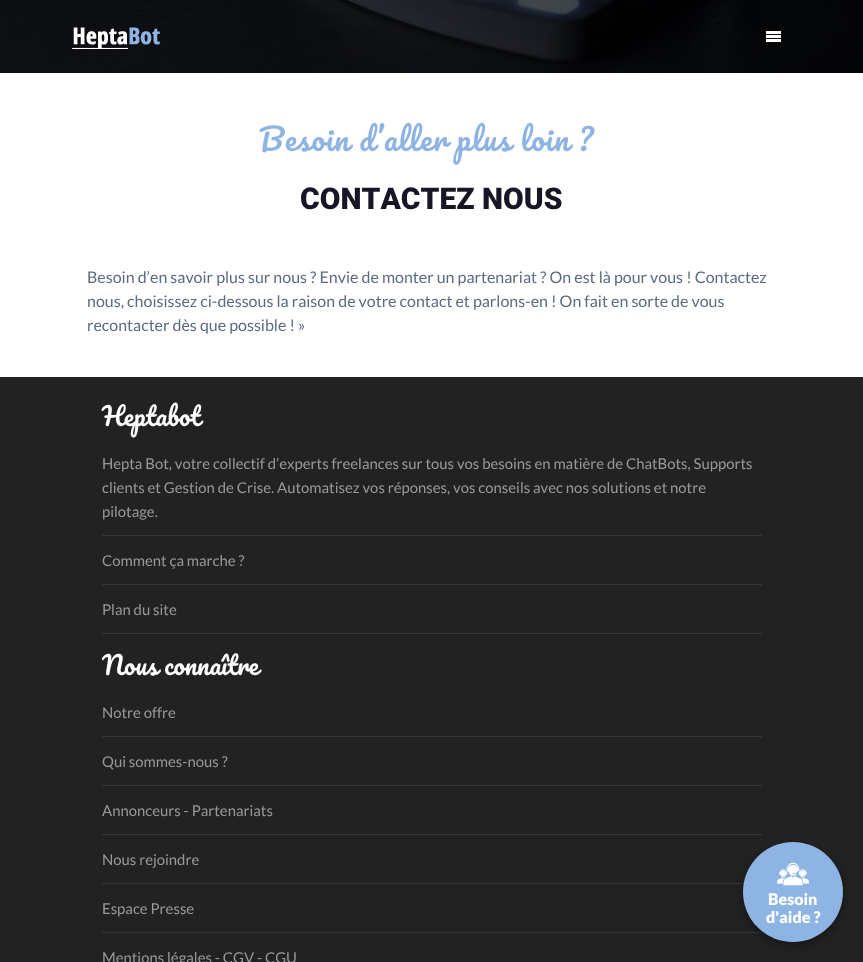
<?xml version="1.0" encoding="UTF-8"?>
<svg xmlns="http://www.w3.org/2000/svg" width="863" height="962">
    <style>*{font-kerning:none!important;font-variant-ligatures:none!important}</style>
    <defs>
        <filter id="blur1" x="-50%" y="-200%" width="200%" height="500%"><feGaussianBlur stdDeviation="5"/></filter>
    </defs>
    <rect width="100%" height="100%" fill="#FFFFFF"/>
    <image x="0" y="0" width="863" height="73" href="img_01.png"/>
    <image x="72" y="27" width="88" height="22" href="img_02.png"/>
    <rect x="766" y="31" width="15" height="3" fill="#FFFFFF"/>
    <rect x="766" y="35" width="15" height="3" fill="#FFFFFF"/>
    <rect x="766" y="39" width="15" height="3" fill="#FFFFFF"/>
    <text x="259" y="151" font-family="Pacifico" font-size="30" letter-spacing="1" fill="#8EB4E3">Besoin d’aller plus loin ?</text>
    <text x="300" y="209" font-family="Roboto" font-size="30" font-weight="900" fill="#161625">CONTACTEZ NOUS</text>
    <text font-family="Lato" font-size="16" fill="#5C6B80">
        <tspan x="87" y="283">Besoin d’en savoir plus sur nous ? Envie de monter un partenariat ? On est là pour vous ! Contactez</tspan>
        <tspan x="87" y="307">nous, choisissez ci-dessous la raison de votre contact et parlons-en ! On fait en sorte de vous</tspan>
        <tspan x="87" y="331">recontacter dès que possible ! »</tspan>
    </text>
    <rect x="0" y="377" width="863" height="585" fill="#222222"/>
    <text x="102" y="426" font-family="Pacifico" font-size="25" fill="#FFFFFF">Heptabot</text>
    <rect x="102" y="535" width="660" height="1" fill="#373737"/>
    <text font-family="Lato" font-size="14.9" fill="#999999">
        <tspan x="102" y="469">Hepta Bot, votre collectif d’experts freelances sur tous vos besoins en matière de ChatBots, Supports</tspan>
        <tspan x="102" y="493">clients et Gestion de Crise. Automatisez vos réponses, vos conseils avec nos solutions et notre</tspan>
        <tspan x="102" y="517">pilotage.</tspan>
    </text>
    <rect x="102" y="584" width="660" height="1" fill="#373737"/>
    <text x="102" y="566" font-family="Lato" font-size="14.9" fill="#999999">Comment ça marche ?</text>
    <rect x="102" y="633" width="660" height="1" fill="#373737"/>
    <text x="102" y="615" font-family="Lato" font-size="14.9" fill="#999999">Plan du site</text>
    <text x="102" y="675" font-family="Pacifico" font-size="25" fill="#FFFFFF">Nous connaître</text>
    <rect x="102" y="736" width="660" height="1" fill="#373737"/>
    <text x="102" y="718" font-family="Lato" font-size="14.9" fill="#999999">Notre offre</text>
    <rect x="102" y="785" width="660" height="1" fill="#373737"/>
    <text x="102" y="767" font-family="Lato" font-size="14.9" fill="#999999">Qui sommes-nous ?</text>
    <rect x="102" y="834" width="660" height="1" fill="#373737"/>
    <text x="102" y="816" font-family="Lato" font-size="14.9" fill="#999999">Annonceurs - Partenariats</text>
    <rect x="102" y="883" width="642" height="1" fill="#373737"/>
    <text x="102" y="865" font-family="Lato" font-size="14.9" fill="#999999">Nous rejoindre</text>
    <rect x="102" y="932" width="660" height="1" fill="#373737"/>
    <text x="102" y="914" font-family="Lato" font-size="14.9" fill="#999999">Espace Presse</text>
    <text x="102" y="963" font-family="Lato" font-size="14.9" fill="#999999">Mentions légales - CGV - CGU</text>
    <rect x="743" y="845" width="100" height="100" rx="50" fill="#000000" fill-opacity="0.4" filter="url(#blur1)"/>
    <circle cx="793" cy="892" r="50" fill="#8EB4E3"/>
    <image x="777" y="862" width="32" height="24" href="img_03.png"/>
    <text x="768" y="905" font-family="Lato" font-size="16" font-weight="900" fill="#FFFFFF">Besoin</text>
    <text x="766" y="923" font-family="Lato" font-size="16" font-weight="900" fill="#FFFFFF">d'aide ?</text>
</svg>
